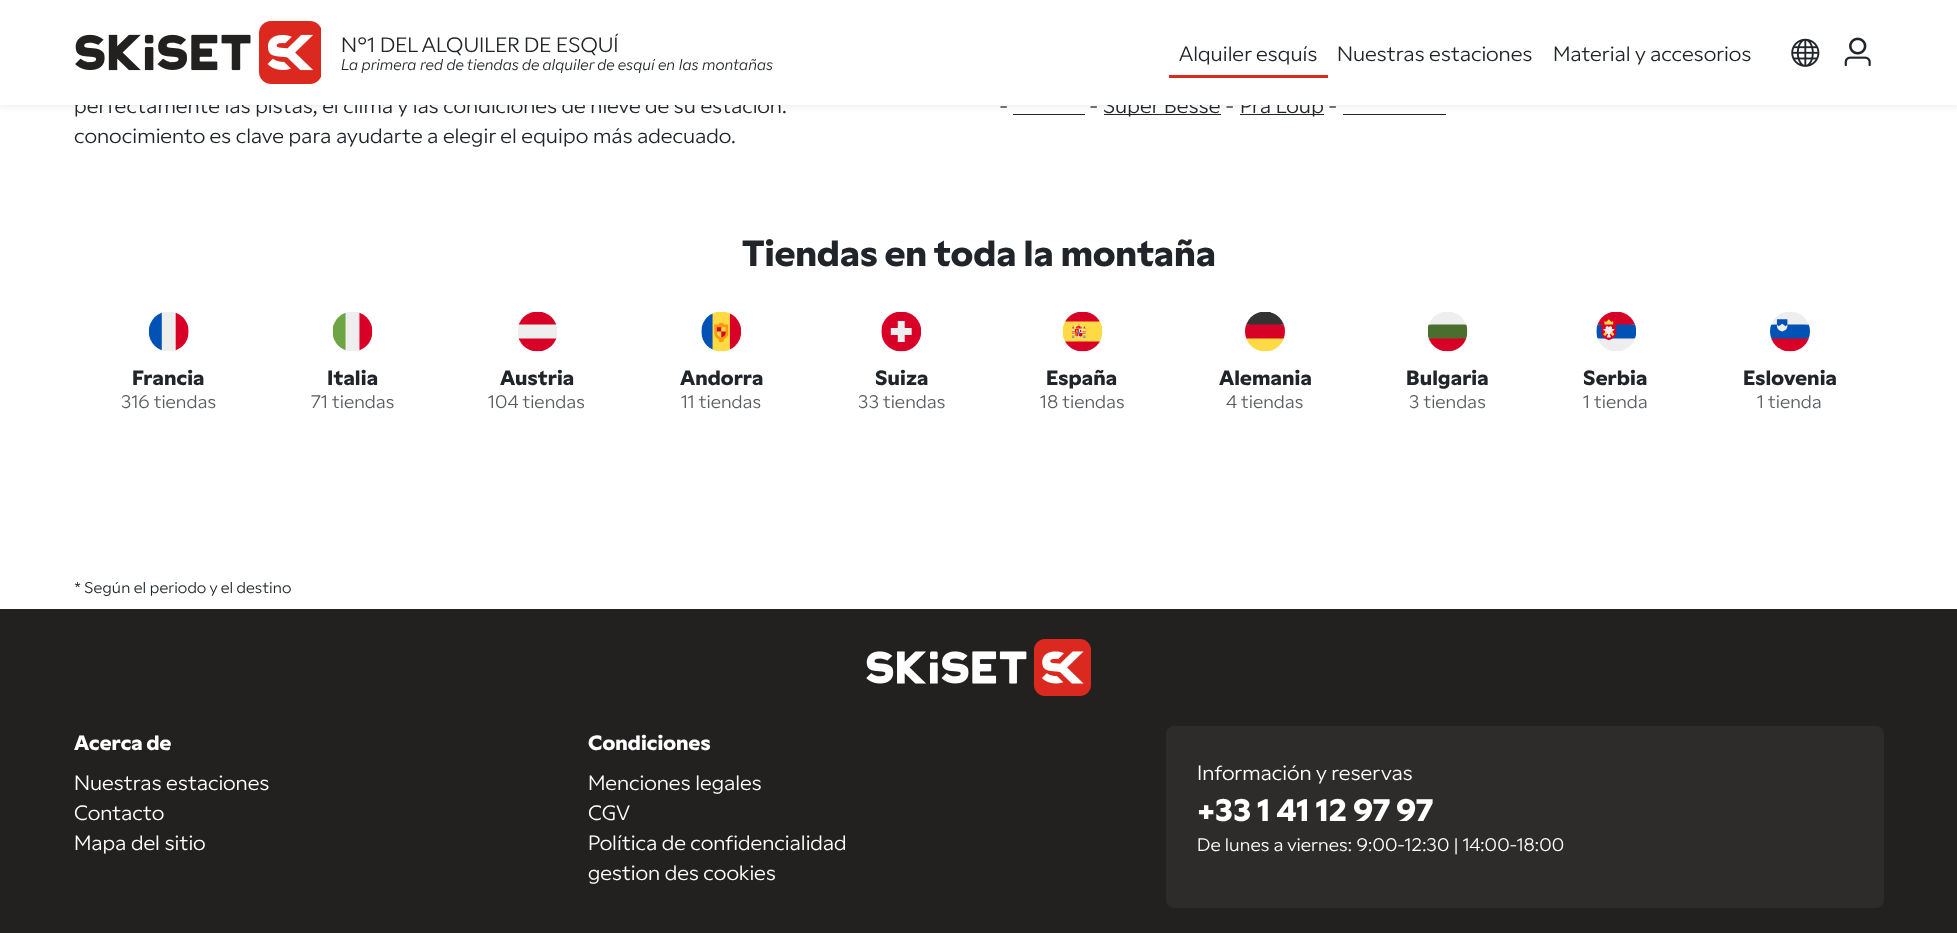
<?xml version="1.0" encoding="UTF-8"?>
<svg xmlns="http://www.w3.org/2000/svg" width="1957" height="933">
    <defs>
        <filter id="blur1" x="-50%" y="-200%" width="200%" height="500%"><feGaussianBlur stdDeviation="4"/></filter>
    </defs>
    <rect width="100%" height="100%" fill="#FFFFFF"/>
    <rect x="1104" y="114" width="117" height="1" fill="#212529"/>
    <rect x="1240" y="114" width="84" height="1" fill="#212529"/>
    <rect x="1013" y="114" width="72" height="1" fill="#212529"/>
    <rect x="1343" y="114" width="103" height="1" fill="#212529"/>
    <rect x="0" y="0" width="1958" height="105" fill="#000000" fill-opacity="0.1" filter="url(#blur1)"/>
    <text x="74" y="113" font-family="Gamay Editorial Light" font-size="20" font-weight="300" letter-spacing="0.15" fill="#212529">perfectamente las pistas, el clima y las condiciones de nieve de su estación.</text>
    <text x="1103" y="113" font-family="Gamay Editorial Light" font-size="20" font-weight="300" letter-spacing="0.15" fill="#212529">Super Besse -</text>
    <text x="1240" y="113" font-family="Gamay Editorial Light" font-size="20" font-weight="300" letter-spacing="0.15" fill="#212529">Pra Loup</text>
    <rect x="0" y="0" width="1957" height="105" fill="#FFFFFF"/>
    <image x="75" y="21" width="246" height="63" href="img_01.png"/>
    <text x="341" y="52" font-family="Gamay Editorial Light" font-size="20" font-weight="300" letter-spacing="0.15" fill="#212529">N°1 DEL ALQUILER DE ESQUÍ</text>
    <text x="341" y="70" font-family="Gamay Editorial Light" font-size="15" font-weight="300" font-style="italic" letter-spacing="0.15" fill="#212529">La primera red de tiendas de alquiler de esquí en las montañas</text>
    <text x="1179" y="61" font-family="Gamay Editorial Light" font-size="20" font-weight="300" letter-spacing="0.15" fill="#212529">Alquiler esquís</text>
    <text x="1337" y="61" font-family="Gamay Editorial Light" font-size="20" font-weight="300" letter-spacing="0.15" fill="#212529">Nuestras estaciones</text>
    <text x="1553" y="61" font-family="Gamay Editorial Light" font-size="20" font-weight="300" letter-spacing="0.15" fill="#212529">Material y accesorios</text>
    <rect x="1169" y="75" width="159" height="3" fill="#DA2B1F"/>
    <image x="1791" y="38" width="29" height="29" href="img_02.png"/>
    <image x="1844" y="37" width="27" height="30" href="img_03.png"/>
    <text x="74" y="143" font-family="Gamay Editorial Light" font-size="20" font-weight="300" letter-spacing="0.15" fill="#212529">conocimiento es clave para ayudarte a elegir el equipo más adecuado.</text>
    <text x="999" y="113" font-family="Gamay Editorial Light" font-size="20" font-weight="300" letter-spacing="0.15" fill="#212529">-</text>
    <text x="1089" y="113" font-family="Gamay Editorial Light" font-size="20" font-weight="300" letter-spacing="0.15" fill="#212529">-</text>
    <text x="1328" y="113" font-family="Gamay Editorial Light" font-size="20" font-weight="300" letter-spacing="0.15" fill="#212529">-</text>
    <text x="742" y="266" font-family="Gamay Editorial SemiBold" font-size="35" font-weight="600" letter-spacing="0.15" fill="#212529">Tiendas en toda la montaña</text>
    <image x="149" y="312" width="40" height="39" href="img_04.png"/>
    <text x="132" y="385" font-family="Gamay Editorial SemiBold" font-size="20" font-weight="600" letter-spacing="0.15" fill="#212529">Francia</text>
    <text x="121" y="408" font-family="Gamay Editorial Light" font-size="17.5" font-weight="300" letter-spacing="0.15" fill="#595C5F">316 tiendas</text>
    <image x="333" y="312" width="40" height="39" href="img_05.png"/>
    <text x="327" y="385" font-family="Gamay Editorial SemiBold" font-size="20" font-weight="600" letter-spacing="0.15" fill="#212529">Italia</text>
    <text x="311" y="408" font-family="Gamay Editorial Light" font-size="17.5" font-weight="300" letter-spacing="0.15" fill="#595C5F">71 tiendas</text>
    <image x="518" y="312" width="39" height="40" href="img_06.png"/>
    <text x="500" y="385" font-family="Gamay Editorial SemiBold" font-size="20" font-weight="600" letter-spacing="0.15" fill="#212529">Austria</text>
    <text x="488" y="408" font-family="Gamay Editorial Light" font-size="17.5" font-weight="300" letter-spacing="0.15" fill="#595C5F">104 tiendas</text>
    <image x="701" y="312" width="40" height="40" href="img_07.png"/>
    <text x="680" y="385" font-family="Gamay Editorial SemiBold" font-size="20" font-weight="600" letter-spacing="0.15" fill="#212529">Andorra</text>
    <text x="681" y="408" font-family="Gamay Editorial Light" font-size="17.5" font-weight="300" letter-spacing="0.15" fill="#595C5F">11 tiendas</text>
    <image x="881" y="312" width="40" height="40" href="img_08.png"/>
    <text x="875" y="385" font-family="Gamay Editorial SemiBold" font-size="20" font-weight="600" letter-spacing="0.15" fill="#212529">Suiza</text>
    <text x="858" y="408" font-family="Gamay Editorial Light" font-size="17.5" font-weight="300" letter-spacing="0.15" fill="#595C5F">33 tiendas</text>
    <image x="1063" y="312" width="40" height="40" href="img_09.png"/>
    <text x="1046" y="385" font-family="Gamay Editorial SemiBold" font-size="20" font-weight="600" letter-spacing="0.15" fill="#212529">España</text>
    <text x="1040" y="408" font-family="Gamay Editorial Light" font-size="17.5" font-weight="300" letter-spacing="0.15" fill="#595C5F">18 tiendas</text>
    <image x="1245" y="312" width="40" height="40" href="img_10.png"/>
    <text x="1219" y="385" font-family="Gamay Editorial SemiBold" font-size="20" font-weight="600" letter-spacing="0.15" fill="#212529">Alemania</text>
    <text x="1226" y="408" font-family="Gamay Editorial Light" font-size="17.5" font-weight="300" letter-spacing="0.15" fill="#595C5F">4 tiendas</text>
    <image x="1428" y="312" width="40" height="40" href="img_11.png"/>
    <text x="1406" y="385" font-family="Gamay Editorial SemiBold" font-size="20" font-weight="600" letter-spacing="0.15" fill="#212529">Bulgaria</text>
    <text x="1409" y="408" font-family="Gamay Editorial Light" font-size="17.5" font-weight="300" letter-spacing="0.15" fill="#595C5F">3 tiendas</text>
    <image x="1596" y="312" width="40" height="39" href="img_12.png"/>
    <text x="1583" y="385" font-family="Gamay Editorial SemiBold" font-size="20" font-weight="600" letter-spacing="0.15" fill="#212529">Serbia</text>
    <text x="1583" y="408" font-family="Gamay Editorial Light" font-size="17.5" font-weight="300" letter-spacing="0.15" fill="#595C5F">1 tienda</text>
    <image x="1770" y="312" width="40" height="40" href="img_13.png"/>
    <text x="1743" y="385" font-family="Gamay Editorial SemiBold" font-size="20" font-weight="600" letter-spacing="0.15" fill="#212529">Eslovenia</text>
    <text x="1757" y="408" font-family="Gamay Editorial Light" font-size="17.5" font-weight="300" letter-spacing="0.15" fill="#595C5F">1 tienda</text>
    <text x="74" y="593" font-family="Gamay Editorial Light" font-size="15" font-weight="300" letter-spacing="0.15" fill="#212529">* Según el periodo y el destino</text>
    <rect x="0" y="609" width="1957" height="324" fill="#232120"/>
    <image x="866" y="639" width="225" height="57" href="img_14.png"/>
    <text x="74" y="750" font-family="Gamay Editorial SemiBold" font-size="20" font-weight="600" letter-spacing="0.15" fill="#FFFFFF">Acerca de</text>
    <text font-family="Gamay Editorial Light" font-size="20" font-weight="300" letter-spacing="0.15" fill="#FFFFFF">
        <tspan x="74" y="790">Nuestras estaciones</tspan>
        <tspan x="74" y="820">Contacto</tspan>
        <tspan x="74" y="850">Mapa del sitio</tspan>
    </text>
    <text x="588" y="750" font-family="Gamay Editorial SemiBold" font-size="20" font-weight="600" letter-spacing="0.15" fill="#FFFFFF">Condiciones</text>
    <text font-family="Gamay Editorial Light" font-size="20" font-weight="300" letter-spacing="0.15" fill="#FFFFFF">
        <tspan x="588" y="790">Menciones legales</tspan>
        <tspan x="588" y="820">CGV</tspan>
        <tspan x="588" y="850">Política de confidencialidad</tspan>
        <tspan x="588" y="880">gestion des cookies</tspan>
    </text>
    <rect x="1166" y="726" width="718" height="182" rx="8" fill="#2E2C2B"/>
    <text x="1197" y="780" font-family="Gamay Editorial Light" font-size="20" font-weight="300" letter-spacing="0.15" fill="#FFFFFF">Información y reservas</text>
    <text x="1197" y="821" font-family="Gamay Editorial SemiBold" font-size="30" font-weight="600" letter-spacing="0.15" fill="#FFFFFF">+33 1 41 12 97 97</text>
    <text x="1197" y="851" font-family="Gamay Editorial Light" font-size="17.5" font-weight="300" letter-spacing="0.15" fill="#FFFFFF">De lunes a viernes: 9:00-12:30 | 14:00-18:00</text>
</svg>
